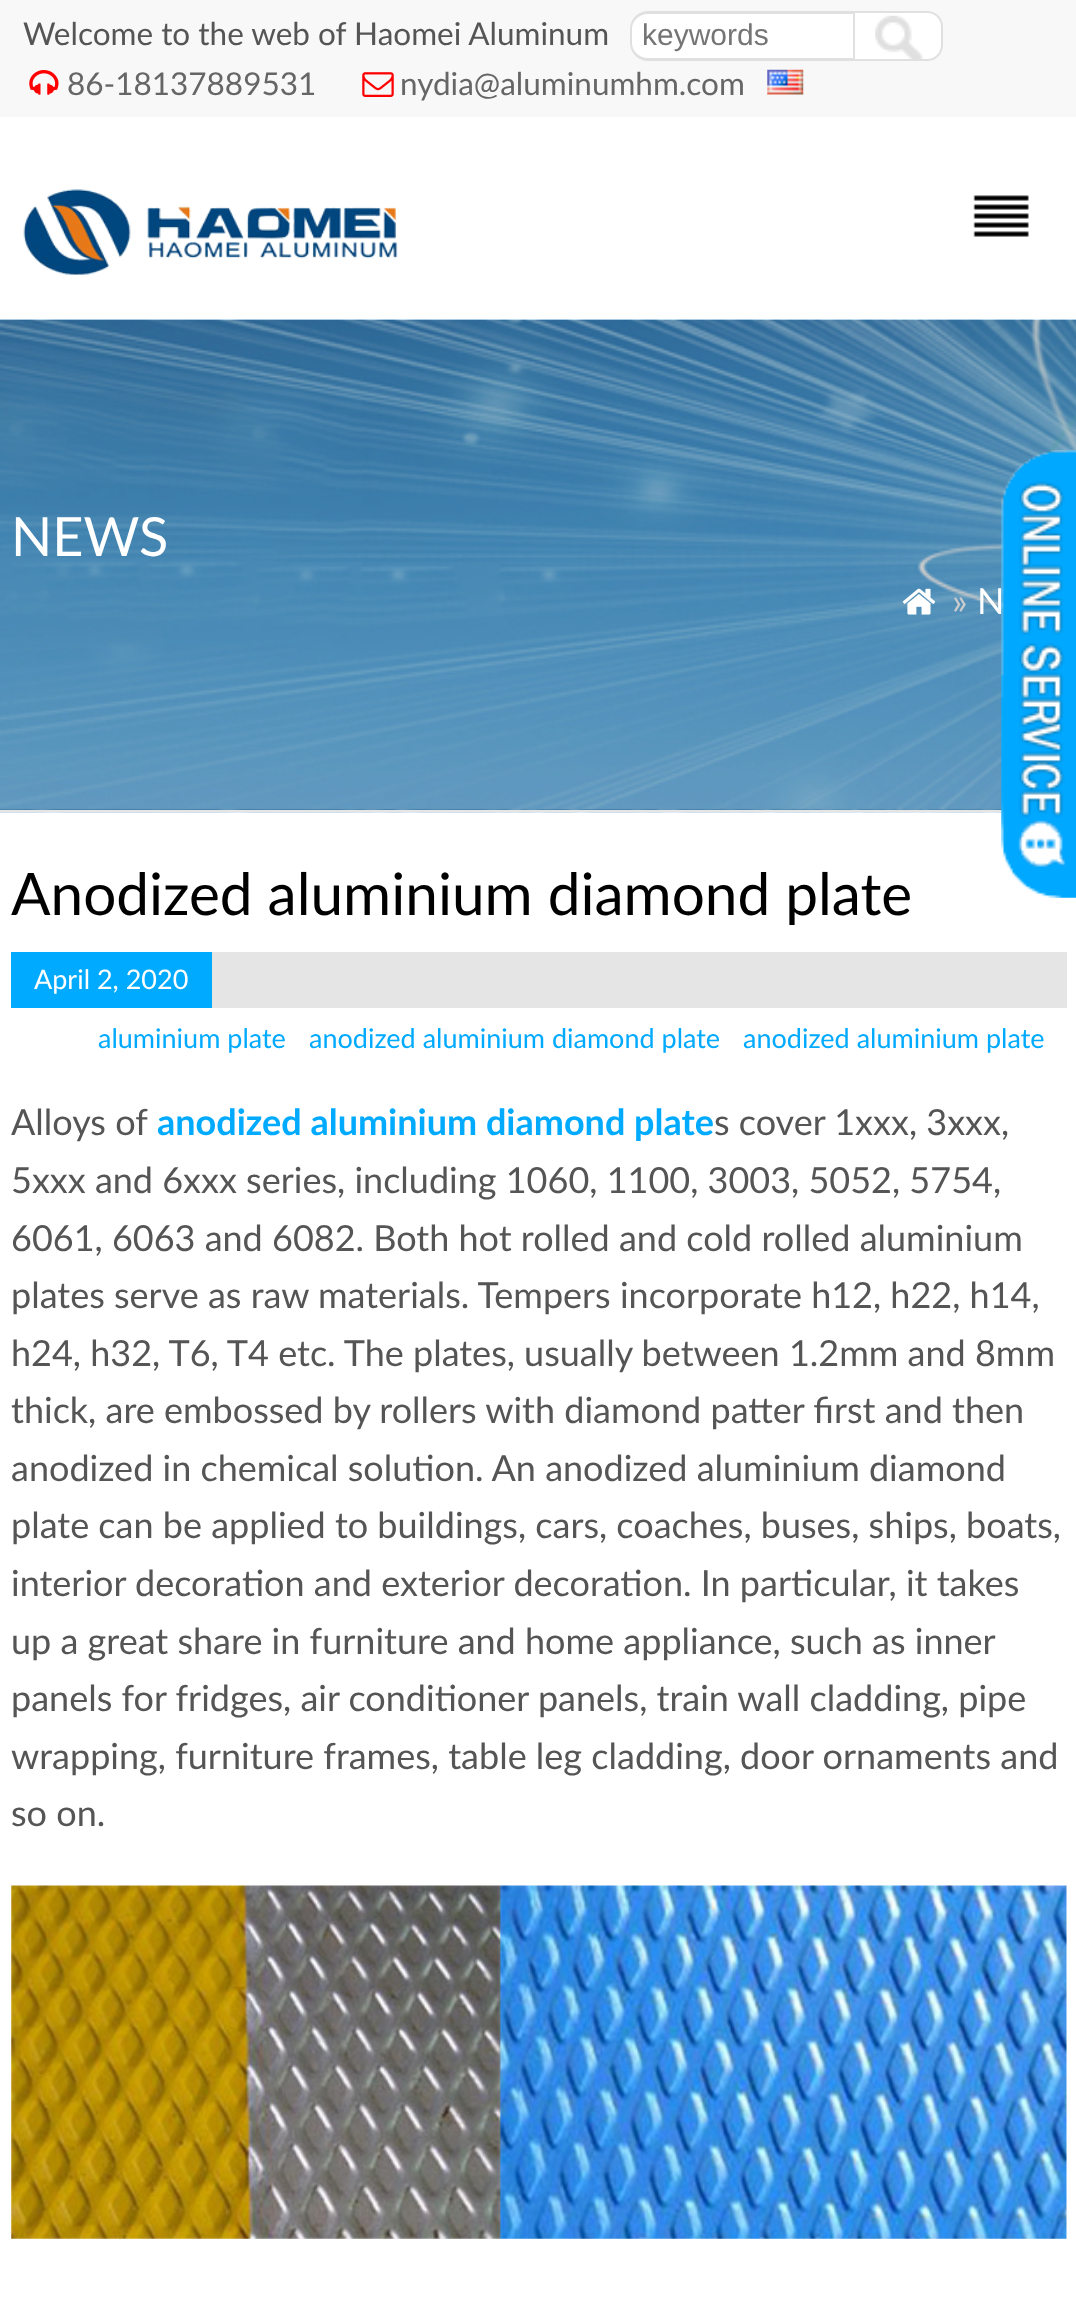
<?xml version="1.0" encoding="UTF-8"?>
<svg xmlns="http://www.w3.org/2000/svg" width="1076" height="2300">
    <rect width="100%" height="100%" fill="#FFFFFF"/>
    <rect x="0" y="0" width="1076" height="117" fill="#F8F8F8"/>
    <text x="23" y="45" font-family="Lato" font-size="31.5" fill="#555555">Welcome to the web of Haomei Aluminum</text>
    <path d="M 648 11 H 853 V 61 H 648 C 638 61 630 53 630 43 V 29 C 630 19 638 11 648 11 Z" fill="#FFFFFF"/>
    <path d="M 648 11 H 853 V 61 H 648 C 638 61 630 53 630 43 V 29 C 630 19 638 11 648 11 Z M 648 14 H 853 V 58 H 648 C 639 58 632 51 632 43 V 29 C 632 21 639 14 648 14 Z" fill="#E0E0E0" fill-rule="evenodd"/>
    <text x="642" y="45" font-family="Liberation Sans" font-size="30" fill="#757575">keywords</text>
    <path d="M 853 11 H 927 C 936 11 943 18 943 27 V 45 C 943 54 936 61 927 61 H 853 Z" fill="#FFFFFF"/>
    <image x="875" y="15" width="48" height="44" href="img_01.png"/>
    <path d="M 854 12 H 927 C 935.5 12 942 18.5 942 27 V 45 C 942 53.5 935.5 60 927 60 H 854 Z" fill="none" stroke="#E0E0E0" stroke-width="2"/>
    <image x="29" y="70" width="30" height="25" href="img_02.png"/>
    <text x="67" y="95" font-family="Lato" font-size="31.5" fill="#666666">86-18137889531</text>
    <image x="362" y="72" width="32" height="25" href="img_03.png"/>
    <text x="400" y="95" font-family="Lato" font-size="31.5" fill="#666666">nydia@aluminumhm.com</text>
    <image x="767" y="69" width="37" height="26" href="img_04.png"/>
    <image x="23" y="189" width="375" height="86" href="img_05.png"/>
    <image x="973" y="195" width="56" height="42" href="img_06.png"/>
    <image x="0" y="319" width="1076" height="494" href="img_08.png"/>
    <rect x="0" y="810" width="1005" height="2" fill="#E5E5E5"/>
    <text x="977" y="614" font-family="Lato" font-size="36" fill="#FFFFFF">N</text>
    <image x="1001" y="450" width="75" height="448" href="img_07.png"/>
    <text x="11" y="556" font-family="Lato" font-size="54" fill="#FFFFFF">NEWS</text>
    <image x="902" y="588" width="34" height="27" href="img_09.png"/>
    <text x="952" y="614" font-family="Lato" font-size="36" fill="#CCCCCC">»</text>
    <text x="11" y="915" font-family="Lato" font-size="58.5" fill="#000000">Anodized aluminium diamond plate</text>
    <rect x="212" y="952" width="855" height="56" fill="#E5E5E5"/>
    <rect x="11" y="952" width="201" height="56" fill="#00AAFF"/>
    <text x="34" y="989" font-family="Lato" font-size="27" fill="#FFFFFF">April 2, 2020</text>
    <text x="98" y="1048" font-family="Lato" font-size="27" fill="#00AAFF">aluminium plate</text>
    <text x="309" y="1048" font-family="Lato" font-size="27" fill="#00AAFF">anodized aluminium diamond plate</text>
    <text x="743" y="1048" font-family="Lato" font-size="27" fill="#00AAFF">anodized aluminium plate</text>
    <text x="11" y="1135" font-family="Lato" font-size="36" fill="#555555">Alloys of</text>
    <text x="157" y="1135" font-family="Lato" font-size="36" font-weight="700" fill="#00AAFF">anodized aluminium diamond plate</text>
    <text x="714" y="1135" font-family="Lato" font-size="36" fill="#555555">s cover 1xxx, 3xxx,</text>
    <text font-family="Lato" font-size="36" fill="#555555">
        <tspan x="11" y="1193">5xxx and 6xxx series, including 1060, 1100, 3003, 5052, 5754,</tspan>
        <tspan x="11" y="1251">6061, 6063 and 6082. Both hot rolled and cold rolled aluminium</tspan>
        <tspan x="11" y="1308">plates serve as raw materials. Tempers incorporate h12, h22, h14,</tspan>
        <tspan x="11" y="1366">h24, h32, T6, T4 etc. The plates, usually between 1.2mm and 8mm</tspan>
        <tspan x="11" y="1423">thick, are embossed by rollers with diamond patter first and then</tspan>
        <tspan x="11" y="1481">anodized in chemical solution. An anodized aluminium diamond</tspan>
        <tspan x="11" y="1538">plate can be applied to buildings, cars, coaches, buses, ships, boats,</tspan>
        <tspan x="11" y="1596">interior decoration and exterior decoration. In particular, it takes</tspan>
        <tspan x="11" y="1654">up a great share in furniture and home appliance, such as inner</tspan>
        <tspan x="11" y="1711">panels for fridges, air conditioner panels, train wall cladding, pipe</tspan>
        <tspan x="11" y="1769">wrapping, furniture frames, table leg cladding, door ornaments and</tspan>
        <tspan x="11" y="1826">so on.</tspan>
    </text>
    <image x="11" y="1885" width="1056" height="354" href="img_10.png"/>
</svg>
